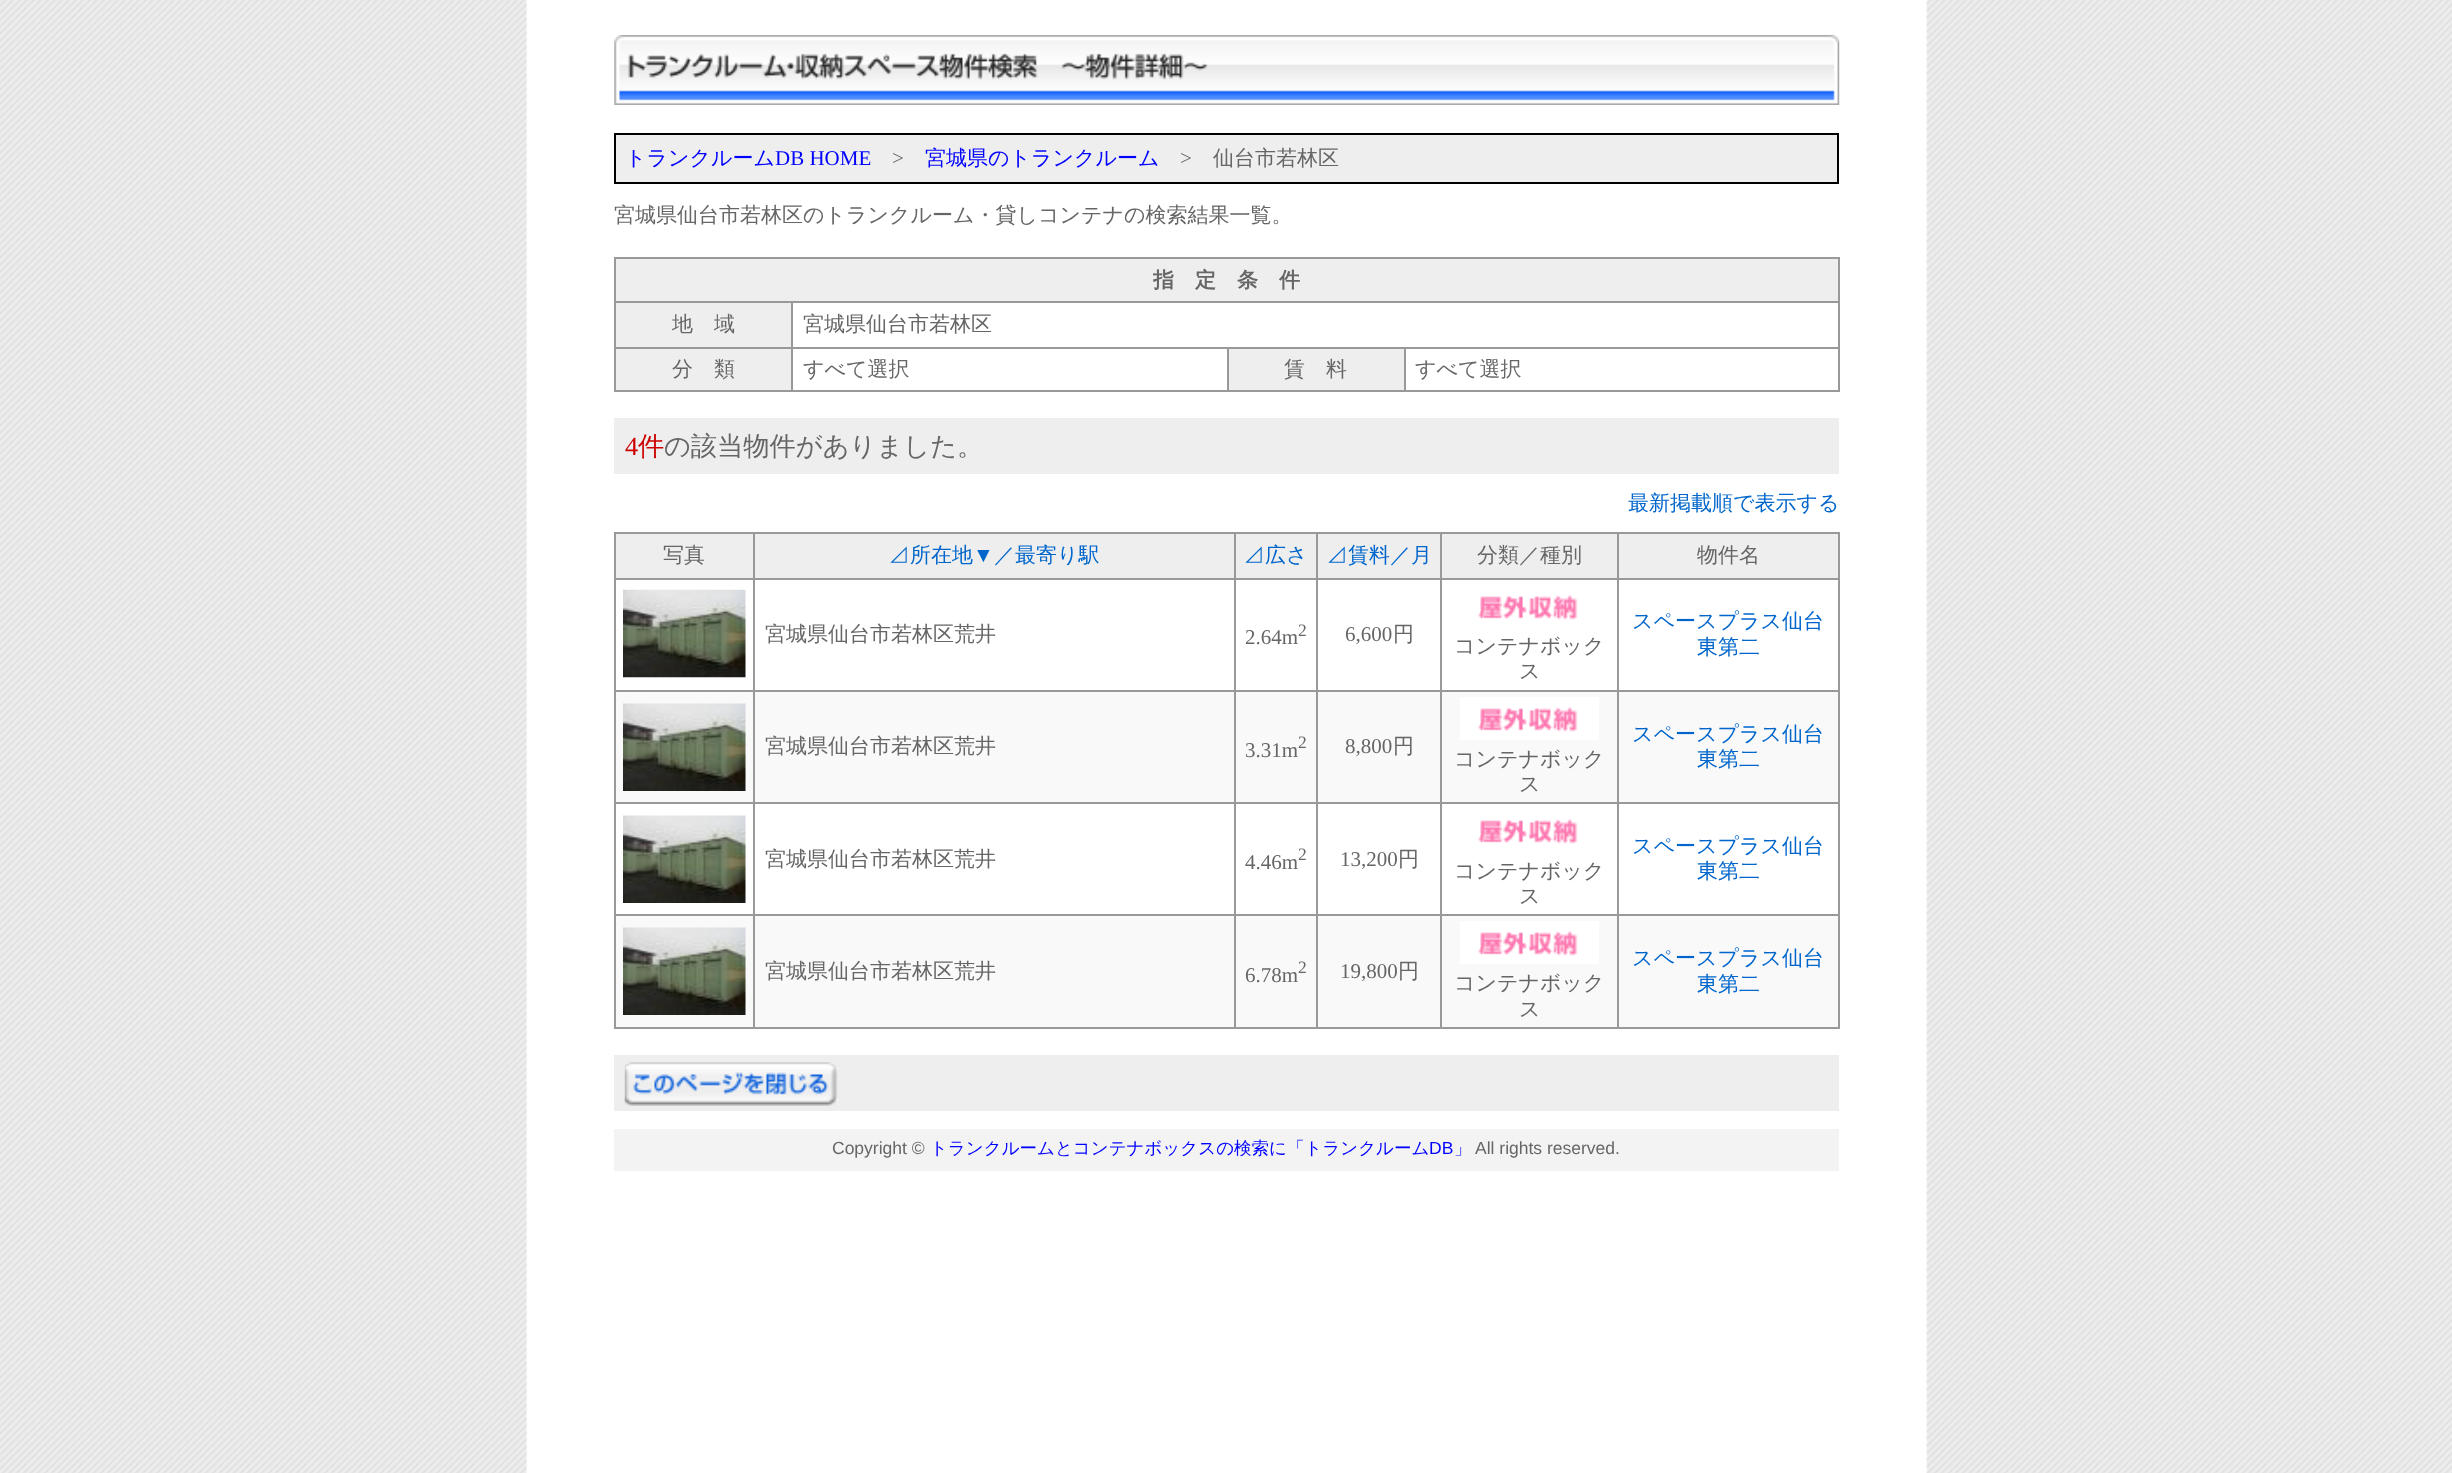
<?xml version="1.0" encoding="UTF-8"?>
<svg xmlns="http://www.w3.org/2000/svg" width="2452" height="1473">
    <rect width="100%" height="100%" fill="#FFFFFF"/>
    <image x="0" y="0" width="2452" height="1473" href="img_01.png"/>
    <image x="614" y="35" width="1226" height="70" href="img_02.png"/>
    <rect x="615" y="134" width="1223" height="49" fill="#EEEEEE" stroke="#000000" stroke-width="2"/>
    <text x="625" y="165" font-family="WenQuanYi Zen Hei" font-size="21" font-weight="500" fill="#0000FF">トランクルーム</text>
    <text x="775" y="165" font-family="Liberation Serif" font-size="21" fill="#0000FF">DB HOME</text>
    <text x="892" y="165" font-family="Liberation Serif" font-size="21" fill="#666666">&gt;</text>
    <text x="925" y="165" font-family="WenQuanYi Zen Hei" font-size="21" font-weight="500" fill="#0000FF">宮城県のトランクルーム</text>
    <text x="1180" y="165" font-family="Liberation Serif" font-size="21" fill="#666666">&gt;</text>
    <text x="1213" y="165" font-family="WenQuanYi Zen Hei" font-size="21" font-weight="500" fill="#666666">仙台市若林区</text>
    <text x="614" y="222" font-family="WenQuanYi Zen Hei" font-size="21" font-weight="500" fill="#666666">宮城県仙台市若林区のトランクルーム・貸しコンテナの検索結果一覧。</text>
    <rect x="616" y="259" width="1222" height="42" fill="#EEEEEE"/>
    <rect x="614" y="257" width="1225" height="2" fill="#999999"/>
    <rect x="791" y="301" width="1048" height="2" fill="#999999"/>
    <rect x="1404" y="347" width="435" height="2" fill="#999999"/>
    <rect x="1838" y="347" width="2" height="45" fill="#999999"/>
    <rect x="1838" y="301" width="2" height="47" fill="#999999"/>
    <rect x="1838" y="257" width="2" height="46" fill="#999999"/>
    <rect x="1404" y="390" width="435" height="2" fill="#999999"/>
    <rect x="1404" y="347" width="2" height="45" fill="#999999"/>
    <rect x="1227" y="347" width="178" height="2" fill="#999999"/>
    <rect x="1227" y="390" width="178" height="2" fill="#999999"/>
    <rect x="1227" y="347" width="2" height="45" fill="#999999"/>
    <rect x="791" y="347" width="438" height="2" fill="#999999"/>
    <rect x="791" y="390" width="438" height="2" fill="#999999"/>
    <rect x="791" y="347" width="2" height="45" fill="#999999"/>
    <rect x="614" y="347" width="179" height="2" fill="#999999"/>
    <rect x="791" y="301" width="2" height="47" fill="#999999"/>
    <rect x="614" y="301" width="179" height="2" fill="#999999"/>
    <rect x="614" y="390" width="179" height="2" fill="#999999"/>
    <rect x="614" y="347" width="2" height="45" fill="#999999"/>
    <rect x="614" y="301" width="2" height="47" fill="#999999"/>
    <rect x="614" y="257" width="2" height="46" fill="#999999"/>
    <text x="1153" y="287" font-family="WenQuanYi Zen Hei" font-size="21" font-weight="700" letter-spacing="21" fill="#666666">指定条件</text>
    <rect x="616" y="303" width="175" height="44" fill="#EEEEEE"/>
    <text x="672" y="331" font-family="WenQuanYi Zen Hei" font-size="21" font-weight="500" fill="#666666">地　域</text>
    <text x="803" y="331" font-family="WenQuanYi Zen Hei" font-size="21" font-weight="500" fill="#666666">宮城県仙台市若林区</text>
    <rect x="616" y="349" width="175" height="41" fill="#EEEEEE"/>
    <text x="672" y="376" font-family="WenQuanYi Zen Hei" font-size="21" font-weight="500" fill="#666666">分　類</text>
    <text x="803" y="376" font-family="WenQuanYi Zen Hei" font-size="21" font-weight="500" fill="#666666">すべて選択</text>
    <rect x="1229" y="349" width="175" height="41" fill="#EEEEEE"/>
    <text x="1284" y="376" font-family="WenQuanYi Zen Hei" font-size="21" font-weight="500" fill="#666666">賃　料</text>
    <text x="1415" y="376" font-family="WenQuanYi Zen Hei" font-size="21" font-weight="500" fill="#666666">すべて選択</text>
    <rect x="614" y="418" width="1225" height="56" fill="#EEEEEE"/>
    <text x="625" y="455" font-family="Liberation Serif" font-size="26.25" fill="#CC0000">4</text>
    <text x="638" y="455" font-family="WenQuanYi Zen Hei" font-size="26.25" font-weight="500" fill="#CC0000">件</text>
    <text x="664" y="455" font-family="WenQuanYi Zen Hei" font-size="26.25" font-weight="500" fill="#666666">の該当物件がありました。</text>
    <text x="1628" y="510" font-family="WenQuanYi Zen Hei" font-size="21" font-weight="500" fill="#0066CC">最新掲載順で表示する</text>
    <rect x="616" y="534" width="137" height="44" fill="#EEEEEE"/>
    <rect x="1617" y="532" width="222" height="2" fill="#999999"/>
    <rect x="1617" y="578" width="222" height="2" fill="#999999"/>
    <rect x="1617" y="690" width="222" height="2" fill="#999999"/>
    <rect x="616" y="692" width="1222" height="110" fill="#F9F9F9"/>
    <rect x="1617" y="802" width="222" height="2" fill="#999999"/>
    <rect x="1617" y="914" width="222" height="2" fill="#999999"/>
    <rect x="616" y="916" width="1222" height="111" fill="#F9F9F9"/>
    <rect x="1838" y="914" width="2" height="115" fill="#999999"/>
    <rect x="1617" y="1027" width="222" height="2" fill="#999999"/>
    <rect x="1617" y="914" width="2" height="115" fill="#999999"/>
    <rect x="1440" y="914" width="179" height="2" fill="#999999"/>
    <rect x="1617" y="802" width="2" height="113" fill="#999999"/>
    <rect x="1440" y="802" width="179" height="2" fill="#999999"/>
    <rect x="1617" y="690" width="2" height="113" fill="#999999"/>
    <rect x="1440" y="690" width="179" height="2" fill="#999999"/>
    <rect x="1617" y="578" width="2" height="113" fill="#999999"/>
    <rect x="1440" y="578" width="179" height="2" fill="#999999"/>
    <rect x="1617" y="532" width="2" height="47" fill="#999999"/>
    <rect x="1440" y="532" width="179" height="2" fill="#999999"/>
    <rect x="1440" y="1027" width="179" height="2" fill="#999999"/>
    <rect x="1440" y="914" width="2" height="115" fill="#999999"/>
    <rect x="1316" y="914" width="126" height="2" fill="#999999"/>
    <rect x="1440" y="802" width="2" height="113" fill="#999999"/>
    <rect x="1316" y="802" width="126" height="2" fill="#999999"/>
    <rect x="1440" y="690" width="2" height="113" fill="#999999"/>
    <rect x="1316" y="690" width="126" height="2" fill="#999999"/>
    <rect x="1440" y="578" width="2" height="113" fill="#999999"/>
    <rect x="1316" y="578" width="126" height="2" fill="#999999"/>
    <rect x="1440" y="532" width="2" height="47" fill="#999999"/>
    <rect x="1316" y="532" width="126" height="2" fill="#999999"/>
    <rect x="1316" y="1027" width="126" height="2" fill="#999999"/>
    <rect x="1316" y="914" width="2" height="115" fill="#999999"/>
    <rect x="1234" y="914" width="84" height="2" fill="#999999"/>
    <rect x="1316" y="802" width="2" height="113" fill="#999999"/>
    <rect x="1234" y="802" width="84" height="2" fill="#999999"/>
    <rect x="1316" y="690" width="2" height="113" fill="#999999"/>
    <rect x="1234" y="690" width="84" height="2" fill="#999999"/>
    <rect x="1316" y="578" width="2" height="113" fill="#999999"/>
    <rect x="1234" y="578" width="84" height="2" fill="#999999"/>
    <rect x="1316" y="532" width="2" height="47" fill="#999999"/>
    <rect x="1234" y="532" width="84" height="2" fill="#999999"/>
    <rect x="1234" y="1027" width="84" height="2" fill="#999999"/>
    <rect x="1234" y="914" width="2" height="115" fill="#999999"/>
    <rect x="753" y="914" width="483" height="2" fill="#999999"/>
    <rect x="1234" y="802" width="2" height="113" fill="#999999"/>
    <rect x="753" y="802" width="483" height="2" fill="#999999"/>
    <rect x="1234" y="690" width="2" height="113" fill="#999999"/>
    <rect x="753" y="690" width="483" height="2" fill="#999999"/>
    <rect x="1234" y="578" width="2" height="113" fill="#999999"/>
    <rect x="753" y="578" width="483" height="2" fill="#999999"/>
    <rect x="1234" y="532" width="2" height="47" fill="#999999"/>
    <rect x="753" y="532" width="483" height="2" fill="#999999"/>
    <rect x="753" y="1027" width="483" height="2" fill="#999999"/>
    <rect x="753" y="914" width="2" height="115" fill="#999999"/>
    <rect x="614" y="914" width="140" height="2" fill="#999999"/>
    <rect x="753" y="802" width="2" height="113" fill="#999999"/>
    <rect x="614" y="802" width="140" height="2" fill="#999999"/>
    <rect x="753" y="690" width="2" height="113" fill="#999999"/>
    <rect x="614" y="690" width="140" height="2" fill="#999999"/>
    <rect x="753" y="578" width="2" height="113" fill="#999999"/>
    <rect x="614" y="578" width="140" height="2" fill="#999999"/>
    <rect x="753" y="532" width="2" height="47" fill="#999999"/>
    <rect x="614" y="532" width="140" height="2" fill="#999999"/>
    <rect x="614" y="1027" width="140" height="2" fill="#999999"/>
    <rect x="614" y="914" width="2" height="115" fill="#999999"/>
    <rect x="614" y="802" width="2" height="113" fill="#999999"/>
    <rect x="614" y="690" width="2" height="113" fill="#999999"/>
    <rect x="614" y="578" width="2" height="113" fill="#999999"/>
    <rect x="614" y="532" width="2" height="47" fill="#999999"/>
    <text x="663" y="562" font-family="WenQuanYi Zen Hei" font-size="21" font-weight="500" fill="#666666">写真</text>
    <rect x="755" y="534" width="479" height="44" fill="#EEEEEE"/>
    <text x="889" y="562" font-family="WenQuanYi Zen Hei" font-size="21" font-weight="500" fill="#0066CC">⊿所在地</text>
    <text x="973" y="562" font-family="Liberation Serif" font-size="21" fill="#0066CC">▼</text>
    <text x="994" y="562" font-family="WenQuanYi Zen Hei" font-size="21" font-weight="500" fill="#0066CC">／最寄り駅</text>
    <rect x="1236" y="534" width="80" height="44" fill="#EEEEEE"/>
    <text x="1244" y="562" font-family="WenQuanYi Zen Hei" font-size="21" font-weight="500" fill="#0066CC">⊿広さ</text>
    <rect x="1318" y="534" width="122" height="44" fill="#EEEEEE"/>
    <text x="1327" y="562" font-family="WenQuanYi Zen Hei" font-size="21" font-weight="500" fill="#0066CC">⊿賃料／月</text>
    <rect x="1442" y="534" width="175" height="44" fill="#EEEEEE"/>
    <text x="1477" y="562" font-family="WenQuanYi Zen Hei" font-size="21" font-weight="500" fill="#666666">分類／種別</text>
    <rect x="1619" y="534" width="219" height="44" fill="#EEEEEE"/>
    <rect x="1838" y="802" width="2" height="113" fill="#999999"/>
    <rect x="1838" y="690" width="2" height="113" fill="#999999"/>
    <rect x="1838" y="578" width="2" height="113" fill="#999999"/>
    <rect x="1838" y="532" width="2" height="47" fill="#999999"/>
    <text x="1697" y="562" font-family="WenQuanYi Zen Hei" font-size="21" font-weight="500" fill="#666666">物件名</text>
    <image x="623" y="589" width="123" height="89" href="img_03.png"/>
    <text x="765" y="641" font-family="WenQuanYi Zen Hei" font-size="21" font-weight="500" fill="#666666">宮城県仙台市若林区荒井</text>
    <text x="1245" y="644" font-family="Liberation Serif" font-size="21" fill="#666666">2.64m</text>
    <text x="1298" y="636" font-family="Liberation Serif" font-size="17.5" fill="#666666">2</text>
    <text x="1345" y="641" font-family="Liberation Serif" font-size="21" fill="#666666">6,600</text>
    <text x="1393" y="641" font-family="WenQuanYi Zen Hei" font-size="21" font-weight="500" fill="#666666">円</text>
    <image x="1478" y="594" width="100" height="26" href="img_04.png"/>
    <text x="1454" y="653" font-family="WenQuanYi Zen Hei" font-size="21" font-weight="500" fill="#666666">コンテナボック</text>
    <text x="1519" y="678" font-family="WenQuanYi Zen Hei" font-size="21" font-weight="500" fill="#666666">ス</text>
    <text x="1632" y="628" font-family="WenQuanYi Zen Hei" font-size="21" font-weight="500" fill="#0066CC">スペースプラス仙台</text>
    <text x="1697" y="654" font-family="WenQuanYi Zen Hei" font-size="21" font-weight="500" fill="#0066CC">東第二</text>
    <image x="623" y="703" width="123" height="88" href="img_05.png"/>
    <text x="765" y="753" font-family="WenQuanYi Zen Hei" font-size="21" font-weight="500" fill="#666666">宮城県仙台市若林区荒井</text>
    <text x="1245" y="757" font-family="Liberation Serif" font-size="21" fill="#666666">3.31m</text>
    <text x="1298" y="748" font-family="Liberation Serif" font-size="17.5" fill="#666666">2</text>
    <text x="1345" y="753" font-family="Liberation Serif" font-size="21" fill="#666666">8,800</text>
    <text x="1393" y="753" font-family="WenQuanYi Zen Hei" font-size="21" font-weight="500" fill="#666666">円</text>
    <text x="1632" y="741" font-family="WenQuanYi Zen Hei" font-size="21" font-weight="500" fill="#0066CC">スペースプラス仙台</text>
    <text x="1697" y="766" font-family="WenQuanYi Zen Hei" font-size="21" font-weight="500" fill="#0066CC">東第二</text>
    <image x="1460" y="697" width="139" height="43" href="img_06.png"/>
    <text x="1454" y="766" font-family="WenQuanYi Zen Hei" font-size="21" font-weight="500" fill="#666666">コンテナボック</text>
    <text x="1519" y="791" font-family="WenQuanYi Zen Hei" font-size="21" font-weight="500" fill="#666666">ス</text>
    <image x="623" y="815" width="123" height="88" href="img_07.png"/>
    <text x="765" y="866" font-family="WenQuanYi Zen Hei" font-size="21" font-weight="500" fill="#666666">宮城県仙台市若林区荒井</text>
    <text x="1245" y="869" font-family="Liberation Serif" font-size="21" fill="#666666">4.46m</text>
    <text x="1298" y="860" font-family="Liberation Serif" font-size="17.5" fill="#666666">2</text>
    <text x="1340" y="866" font-family="Liberation Serif" font-size="21" fill="#666666">13,200</text>
    <text x="1398" y="866" font-family="WenQuanYi Zen Hei" font-size="21" font-weight="500" fill="#666666">円</text>
    <image x="1478" y="818" width="100" height="26" href="img_04.png"/>
    <text x="1454" y="878" font-family="WenQuanYi Zen Hei" font-size="21" font-weight="500" fill="#666666">コンテナボック</text>
    <text x="1519" y="903" font-family="WenQuanYi Zen Hei" font-size="21" font-weight="500" fill="#666666">ス</text>
    <text x="1632" y="853" font-family="WenQuanYi Zen Hei" font-size="21" font-weight="500" fill="#0066CC">スペースプラス仙台</text>
    <text x="1697" y="878" font-family="WenQuanYi Zen Hei" font-size="21" font-weight="500" fill="#0066CC">東第二</text>
    <image x="623" y="927" width="123" height="88" href="img_05.png"/>
    <text x="765" y="978" font-family="WenQuanYi Zen Hei" font-size="21" font-weight="500" fill="#666666">宮城県仙台市若林区荒井</text>
    <text x="1245" y="982" font-family="Liberation Serif" font-size="21" fill="#666666">6.78m</text>
    <text x="1298" y="973" font-family="Liberation Serif" font-size="17.5" fill="#666666">2</text>
    <text x="1340" y="978" font-family="Liberation Serif" font-size="21" fill="#666666">19,800</text>
    <text x="1398" y="978" font-family="WenQuanYi Zen Hei" font-size="21" font-weight="500" fill="#666666">円</text>
    <image x="1460" y="921" width="139" height="43" href="img_06.png"/>
    <text x="1454" y="990" font-family="WenQuanYi Zen Hei" font-size="21" font-weight="500" fill="#666666">コンテナボック</text>
    <text x="1519" y="1016" font-family="WenQuanYi Zen Hei" font-size="21" font-weight="500" fill="#666666">ス</text>
    <text x="1632" y="965" font-family="WenQuanYi Zen Hei" font-size="21" font-weight="500" fill="#0066CC">スペースプラス仙台</text>
    <text x="1697" y="991" font-family="WenQuanYi Zen Hei" font-size="21" font-weight="500" fill="#0066CC">東第二</text>
    <rect x="614" y="1055" width="1225" height="56" fill="#EEEEEE"/>
    <image x="624" y="1062" width="214" height="44" href="img_08.png"/>
    <rect x="614" y="1129" width="1225" height="42" fill="#F3F3F3"/>
    <text x="832" y="1154" font-family="Liberation Sans" font-size="17.5" fill="#666666">Copyright ©</text>
    <text x="930" y="1154" font-family="WenQuanYi Zen Hei" font-size="17.5" font-weight="500" fill="#0000FF">トランクルームとコンテナボックスの検索に「トランクルーム</text>
    <text x="1429" y="1154" font-family="Liberation Sans" font-size="17.5" fill="#0000FF">DB</text>
    <text x="1454" y="1154" font-family="WenQuanYi Zen Hei" font-size="17.5" font-weight="500" fill="#0000FF">」</text>
    <text x="1475" y="1154" font-family="Liberation Sans" font-size="17.5" fill="#666666">All rights reserved.</text>
</svg>
